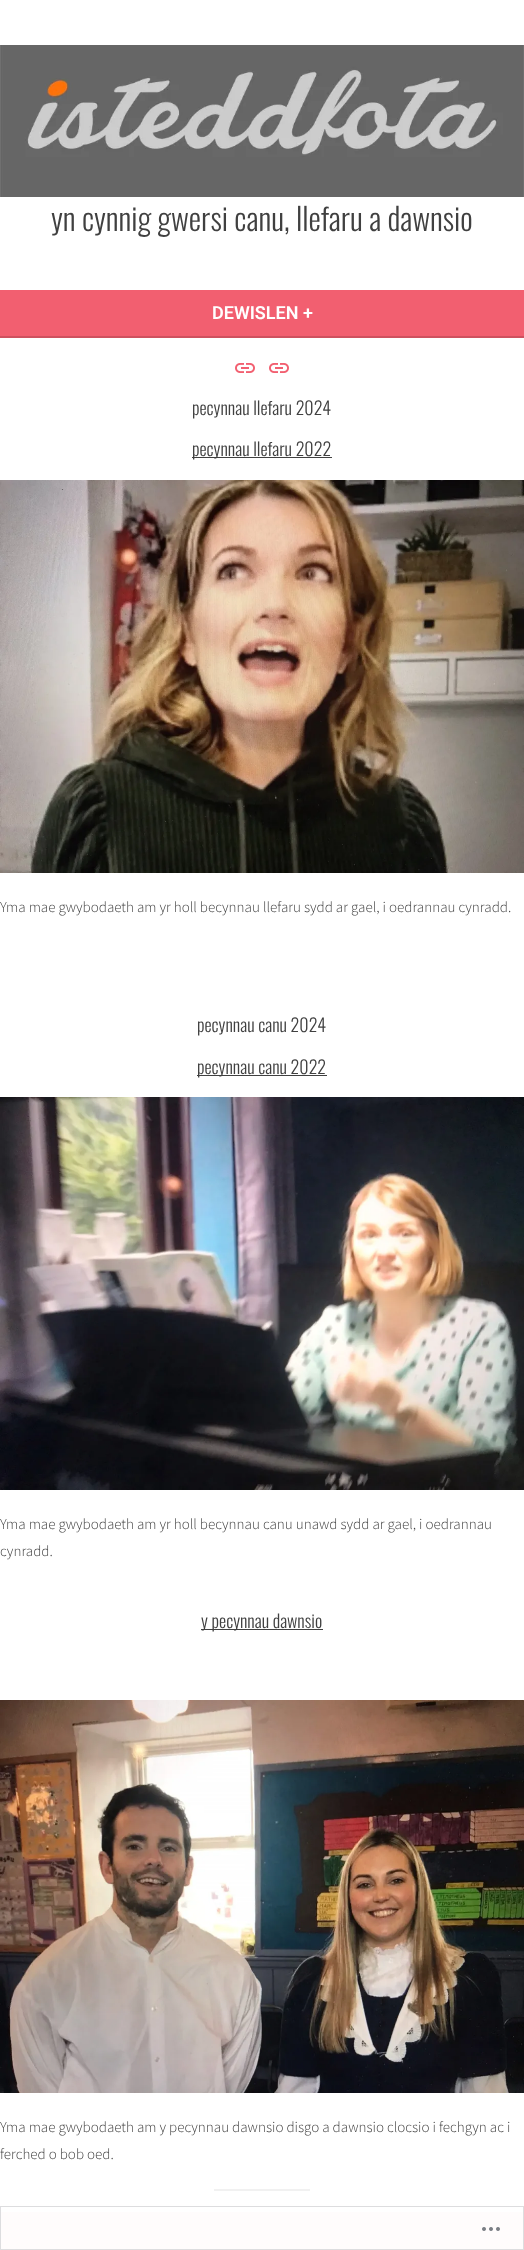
<?xml version="1.0" encoding="UTF-8"?>
<svg xmlns="http://www.w3.org/2000/svg" width="524" height="2250">
    <rect width="100%" height="100%" fill="#FFFFFF"/>
    <image x="0" y="45" width="524" height="152" href="img_01.png"/>
    <text x="51" y="231" font-family="Oswald" font-size="31.1" font-weight="300" fill="#404040">yn cynnig gwersi canu, llefaru a dawnsio</text>
    <rect x="0" y="290" width="524" height="46" fill="#F25F70"/>
    <rect x="0" y="336" width="524" height="2" fill="#CE515F"/>
    <text x="212" y="319" font-family="Roboto" font-size="18" font-weight="600" fill="#FFFFFF">DEWISLEN +</text>
    <image x="235" y="363" width="20" height="10" href="img_02.png"/>
    <image x="269" y="363" width="20" height="10" href="img_02.png"/>
    <text x="192" y="415" font-family="Oswald" font-size="18" font-weight="300" fill="#404040">pecynnau llefaru 2024</text>
    <rect x="192" y="457" width="140" height="1" fill="#404040"/>
    <text x="192" y="456" font-family="Oswald" font-size="18" font-weight="300" fill="#404040">pecynnau llefaru 2022</text>
    <image x="0" y="480" width="524" height="393" href="img_03.png"/>
    <text x="0" y="912" font-family="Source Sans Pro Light" font-size="15" font-weight="300" fill="#404040">Yma mae gwybodaeth am yr holl becynnau llefaru sydd ar gael, i oedrannau cynradd.</text>
    <text x="197" y="1032" font-family="Oswald" font-size="18" font-weight="300" fill="#404040">pecynnau canu 2024</text>
    <rect x="197" y="1075" width="130" height="1" fill="#404040"/>
    <text x="197" y="1074" font-family="Oswald" font-size="18" font-weight="300" fill="#404040">pecynnau canu 2022</text>
    <image x="0" y="1097" width="524" height="393" href="img_04.png"/>
    <text font-family="Source Sans Pro Light" font-size="15" font-weight="300" fill="#404040">
        <tspan x="0" y="1529">Yma mae gwybodaeth am yr holl becynnau canu unawd sydd ar gael, i oedrannau</tspan>
        <tspan x="0" y="1556">cynradd.</tspan>
    </text>
    <rect x="201" y="1629" width="122" height="1" fill="#404040"/>
    <text x="201" y="1628" font-family="Oswald" font-size="18" font-weight="300" fill="#404040">y pecynnau dawnsio</text>
    <image x="0" y="1700" width="524" height="393" href="img_05.png"/>
    <text font-family="Source Sans Pro Light" font-size="15" font-weight="300" fill="#404040">
        <tspan x="0" y="2132">Yma mae gwybodaeth am y pecynnau dawnsio disgo a dawnsio clocsio i fechgyn ac i</tspan>
        <tspan x="0" y="2159">ferched o bob oed.</tspan>
    </text>
    <rect x="214" y="2189" width="96" height="2" fill="#F1F1F1"/>
    <rect x="0" y="2212" width="524" height="38" fill="#FFFCFC"/>
    <rect x="0.5" y="2206.5" width="523" height="43" fill="none" stroke="#DCDCDE" stroke-opacity="0.98"/>
    <image x="482" y="2227" width="18" height="4" href="img_06.png"/>
</svg>
